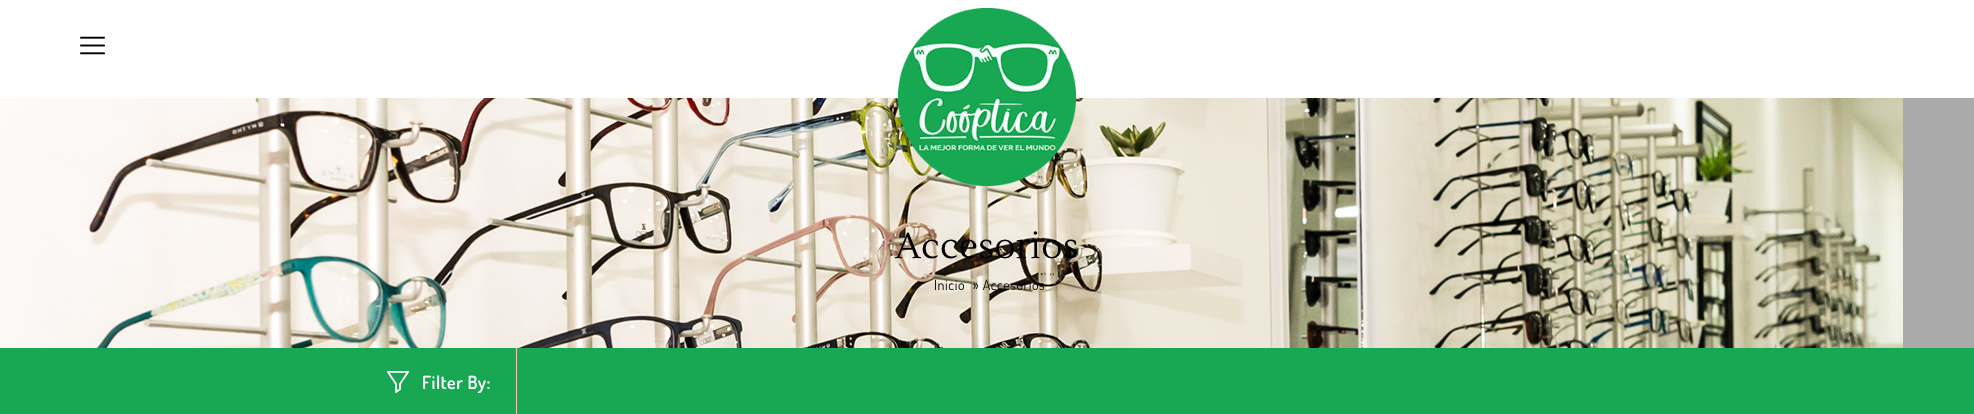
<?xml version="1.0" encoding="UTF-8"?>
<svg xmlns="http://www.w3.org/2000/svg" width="1974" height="414">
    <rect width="100%" height="100%" fill="#FFFFFF"/>
    <image x="80" y="36" width="25" height="19" href="img_01.png"/>
    <image x="0" y="98" width="1903" height="250" href="img_03.png"/>
    <image x="898" y="8" width="178" height="178" href="img_02.png"/>
    <rect x="1903" y="98" width="71" height="250" fill="#AAAAAA"/>
    <text x="895" y="258" font-family="Lustria" font-size="36" fill="#000000">Accesorios</text>
    <text x="934" y="290" font-family="Dosis" font-size="14" letter-spacing="0.6" fill="#000000">Inicio</text>
    <text x="973" y="290" font-family="Dosis" font-size="14" letter-spacing="0.6" fill="#000000">» Accesorios</text>
    <rect x="0" y="348" width="1974" height="66" fill="#18A752"/>
    <image x="387" y="371" width="22" height="22" href="img_04.png"/>
    <rect x="516" y="348" width="1" height="66" fill="#FDC5B7"/>
    <text x="422" y="389" font-family="Dosis" font-size="18" font-weight="600" letter-spacing="0.6" fill="#FFFFFF">Filter By:</text>
</svg>
